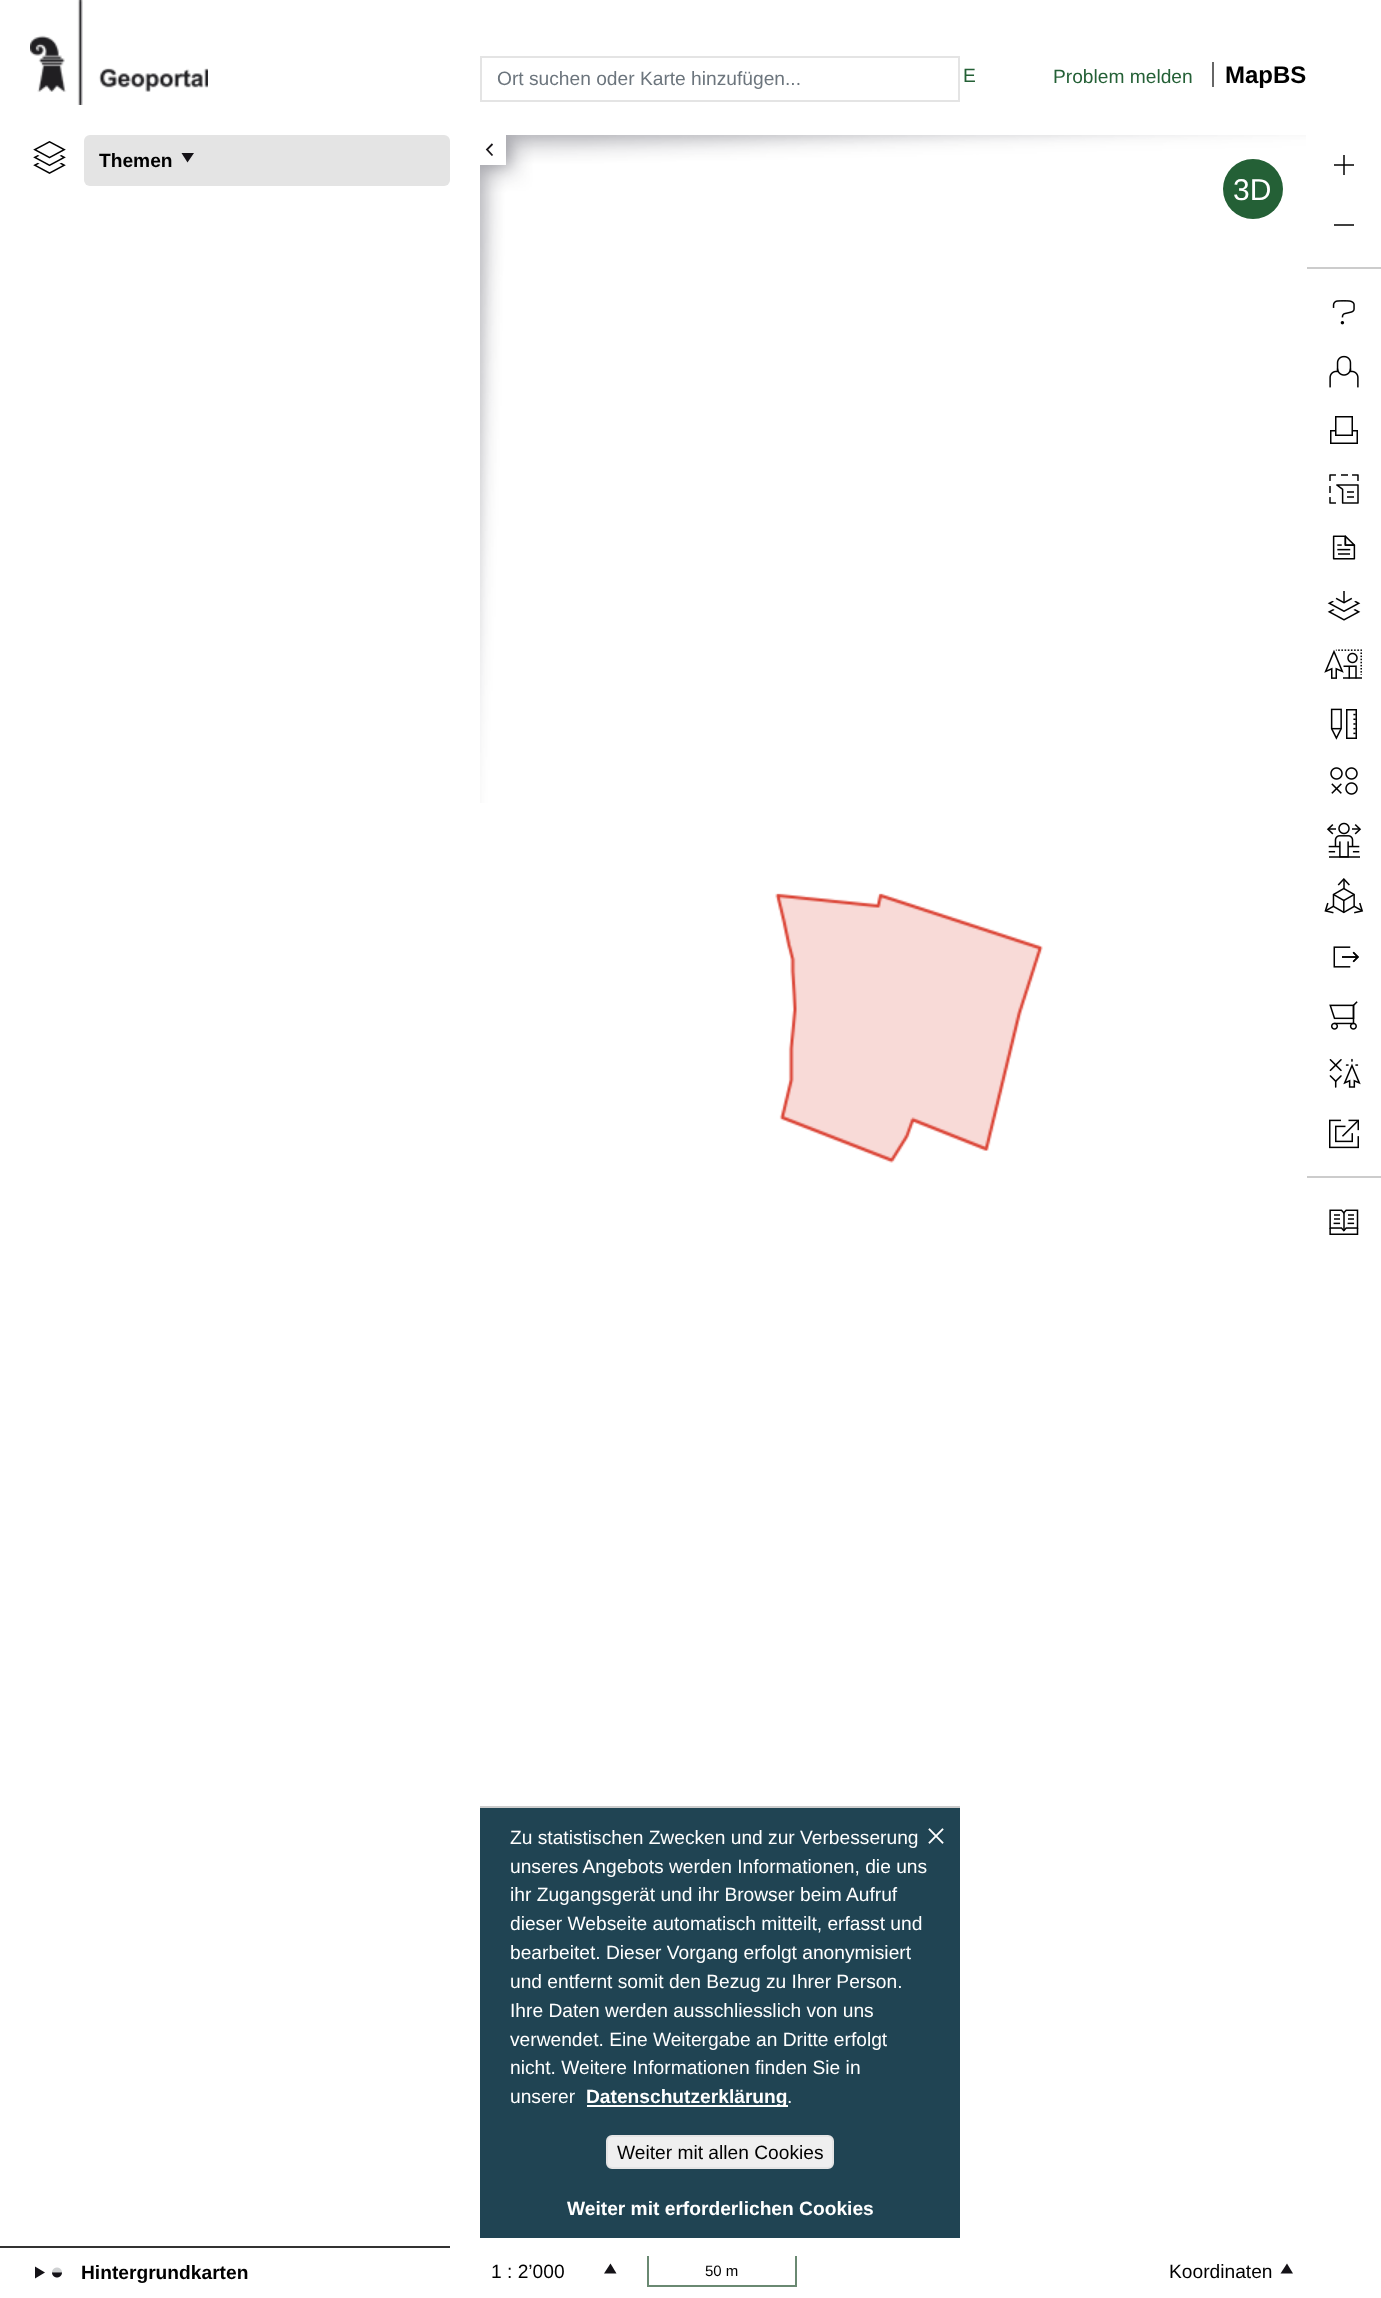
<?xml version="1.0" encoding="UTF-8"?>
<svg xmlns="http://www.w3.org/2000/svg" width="1381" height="2298">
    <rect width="100%" height="100%" fill="#FFFFFF"/>
    <image x="30" y="0" width="178" height="105" href="img_01.png"/>
    <rect x="481" y="57" width="478" height="44" fill="none" stroke="#E4E4E4" stroke-width="2"/>
    <text x="497" y="85" font-family="Liberation Sans" font-size="19.2" fill="#6C757D">Ort suchen oder Karte hinzufügen...</text>
    <text x="963" y="82" font-family="Liberation Sans" font-size="19.2" fill="#246036">E</text>
    <text x="1053" y="83" font-family="Liberation Sans" font-size="19.2" fill="#246036">Problem melden</text>
    <text x="1225" y="83" font-family="Liberation Sans" font-size="24" font-weight="700" fill="#000000">MapBS</text>
    <rect x="1212" y="62" width="2" height="25" fill="#666666"/>
    <image x="33" y="141" width="33" height="33" href="img_02.png"/>
    <rect x="84" y="135" width="366" height="51" rx="6" fill="#E4E4E4"/>
    <text x="99" y="167" font-family="Liberation Sans" font-size="19.2" font-weight="700" fill="#000000">Themen</text>
    <path d="M 181.5 153 H 194 L 187.5 162.5 Z" fill="#141217"/>
    <image x="480" y="135" width="826" height="668" href="img_04.png"/>
    <rect x="480" y="135" width="26" height="30" fill="#FFFFFF"/>
    <path d="M 492.5 155.5 L 487 149.5 L 492.5 144" fill="none" stroke="#1A171B" stroke-width="1.8"/>
    <rect x="0" y="2246" width="450" height="2" fill="#333333"/>
    <path d="M 35 2278.5 V 2266.5 L 45 2272.5 Z" fill="#141217"/>
    <image x="52" y="2267" width="10" height="11" href="img_03.png"/>
    <text x="81" y="2279" font-family="Liberation Sans" font-size="19.2" font-weight="700" fill="#000000">Hintergrundkarten</text>
    <circle cx="1253" cy="189" r="30" fill="#246036"/>
    <text x="1233" y="200" font-family="Liberation Sans" font-size="30" fill="#FFFFFF">3D</text>
    <image x="775" y="893" width="268" height="270" href="img_05.png"/>
    <rect x="480" y="1808" width="480" height="430" fill="#204453"/>
    <rect x="480" y="1806" width="480" height="2" fill="#CCCCCC"/>
    <text font-family="Liberation Sans" font-size="19.2" fill="#FFFFFF">
        <tspan x="510" y="1844">Zu statistischen Zwecken und zur Verbesserung</tspan>
        <tspan x="510" y="1873">unseres Angebots werden Informationen, die uns</tspan>
        <tspan x="510" y="1901">ihr Zugangsgerät und ihr Browser beim Aufruf</tspan>
        <tspan x="510" y="1930">dieser Webseite automatisch mitteilt, erfasst und</tspan>
        <tspan x="510" y="1959">bearbeitet. Dieser Vorgang erfolgt anonymisiert</tspan>
        <tspan x="510" y="1988">und entfernt somit den Bezug zu Ihrer Person.</tspan>
        <tspan x="510" y="2017">Ihre Daten werden ausschliesslich von uns</tspan>
        <tspan x="510" y="2046">verwendet. Eine Weitergabe an Dritte erfolgt</tspan>
        <tspan x="510" y="2074">nicht. Weitere Informationen finden Sie in</tspan>
        <tspan x="510" y="2103">unserer</tspan>
    </text>
    <rect x="587" y="2105" width="201" height="2" fill="#FFFFFF"/>
    <text x="586" y="2103" font-family="Liberation Sans" font-size="19.2" font-weight="700" fill="#FFFFFF">Datenschutzerklärung</text>
    <text x="787" y="2103" font-family="Liberation Sans" font-size="19.2" fill="#FFFFFF">.</text>
    <image x="928" y="1828" width="16" height="16" href="img_06.png"/>
    <rect x="607" y="2136" width="226" height="32" rx="5" fill="#EFEFEF" stroke="#E4E4E4" stroke-width="2"/>
    <text x="617" y="2159" font-family="Liberation Sans" font-size="19.2" fill="#000000">Weiter mit allen Cookies</text>
    <text x="567" y="2215" font-family="Liberation Sans" font-size="19.2" font-weight="700" fill="#FFFFFF">Weiter mit erforderlichen Cookies</text>
    <text x="491" y="2278" font-family="Liberation Sans" font-size="19.2" fill="#000000">1 : 2’000</text>
    <path d="M 616.5 2273.5 H 604 L 610.5 2263.5 Z" fill="#141217"/>
    <rect x="795" y="2256" width="2" height="30" fill="#6A8972"/>
    <rect x="647" y="2285" width="150" height="2" fill="#6A8972"/>
    <rect x="647" y="2256" width="2" height="30" fill="#6A8972"/>
    <text x="705" y="2276" font-family="Liberation Sans" font-size="15" fill="#000000">50 m</text>
    <text x="1169" y="2278" font-family="Liberation Sans" font-size="19.2" fill="#000000">Koordinaten</text>
    <path d="M 1293 2273.5 H 1280.5 L 1287 2263.5 Z" fill="#141217"/>
    <rect x="1343" y="155" width="2" height="20" fill="#404040"/>
    <rect x="1334" y="164" width="20" height="2" fill="#404040"/>
    <rect x="1343" y="164" width="2" height="2" fill="#101010"/>
    <rect x="1334" y="224" width="20" height="2" fill="#404040"/>
    <rect x="1307" y="267" width="74" height="2" fill="#CCCCCC"/>
    <image x="1332" y="300" width="23" height="25" href="img_07.png"/>
    <image x="1329" y="355" width="30" height="33" href="img_08.png"/>
    <rect x="1330.75" y="430.75" width="26.5" height="12.5" fill="none" stroke="#000000" stroke-width="1.5"/>
    <rect x="1336" y="430" width="16" height="2" fill="#FFFFFF"/>
    <rect x="1335.75" y="416.75" width="16.5" height="18.5" fill="none" stroke="#000000" stroke-width="1.5"/>
    <image x="1329" y="474" width="30" height="30" href="img_09.png"/>
    <image x="1332" y="535" width="24" height="25" href="img_10.png"/>
    <image x="1327" y="591" width="34" height="30" href="img_11.png"/>
    <image x="1324" y="649" width="38" height="30" href="img_12.png"/>
    <image x="1330" y="708" width="27" height="32" href="img_13.png"/>
    <image x="1330" y="767" width="28" height="28" href="img_14.png"/>
    <image x="1326" y="822" width="36" height="36" href="img_15.png"/>
    <image x="1324" y="878" width="40" height="36" href="img_16.png"/>
    <image x="1333" y="946" width="26" height="22" href="img_17.png"/>
    <image x="1329" y="1001" width="29" height="29" href="img_18.png"/>
    <image x="1329" y="1058" width="32" height="30" href="img_19.png"/>
    <image x="1329" y="1119" width="30" height="30" href="img_20.png"/>
    <rect x="1307" y="1176" width="74" height="2" fill="#CCCCCC"/>
    <image x="1329" y="1209" width="30" height="26" href="img_21.png"/>
</svg>
